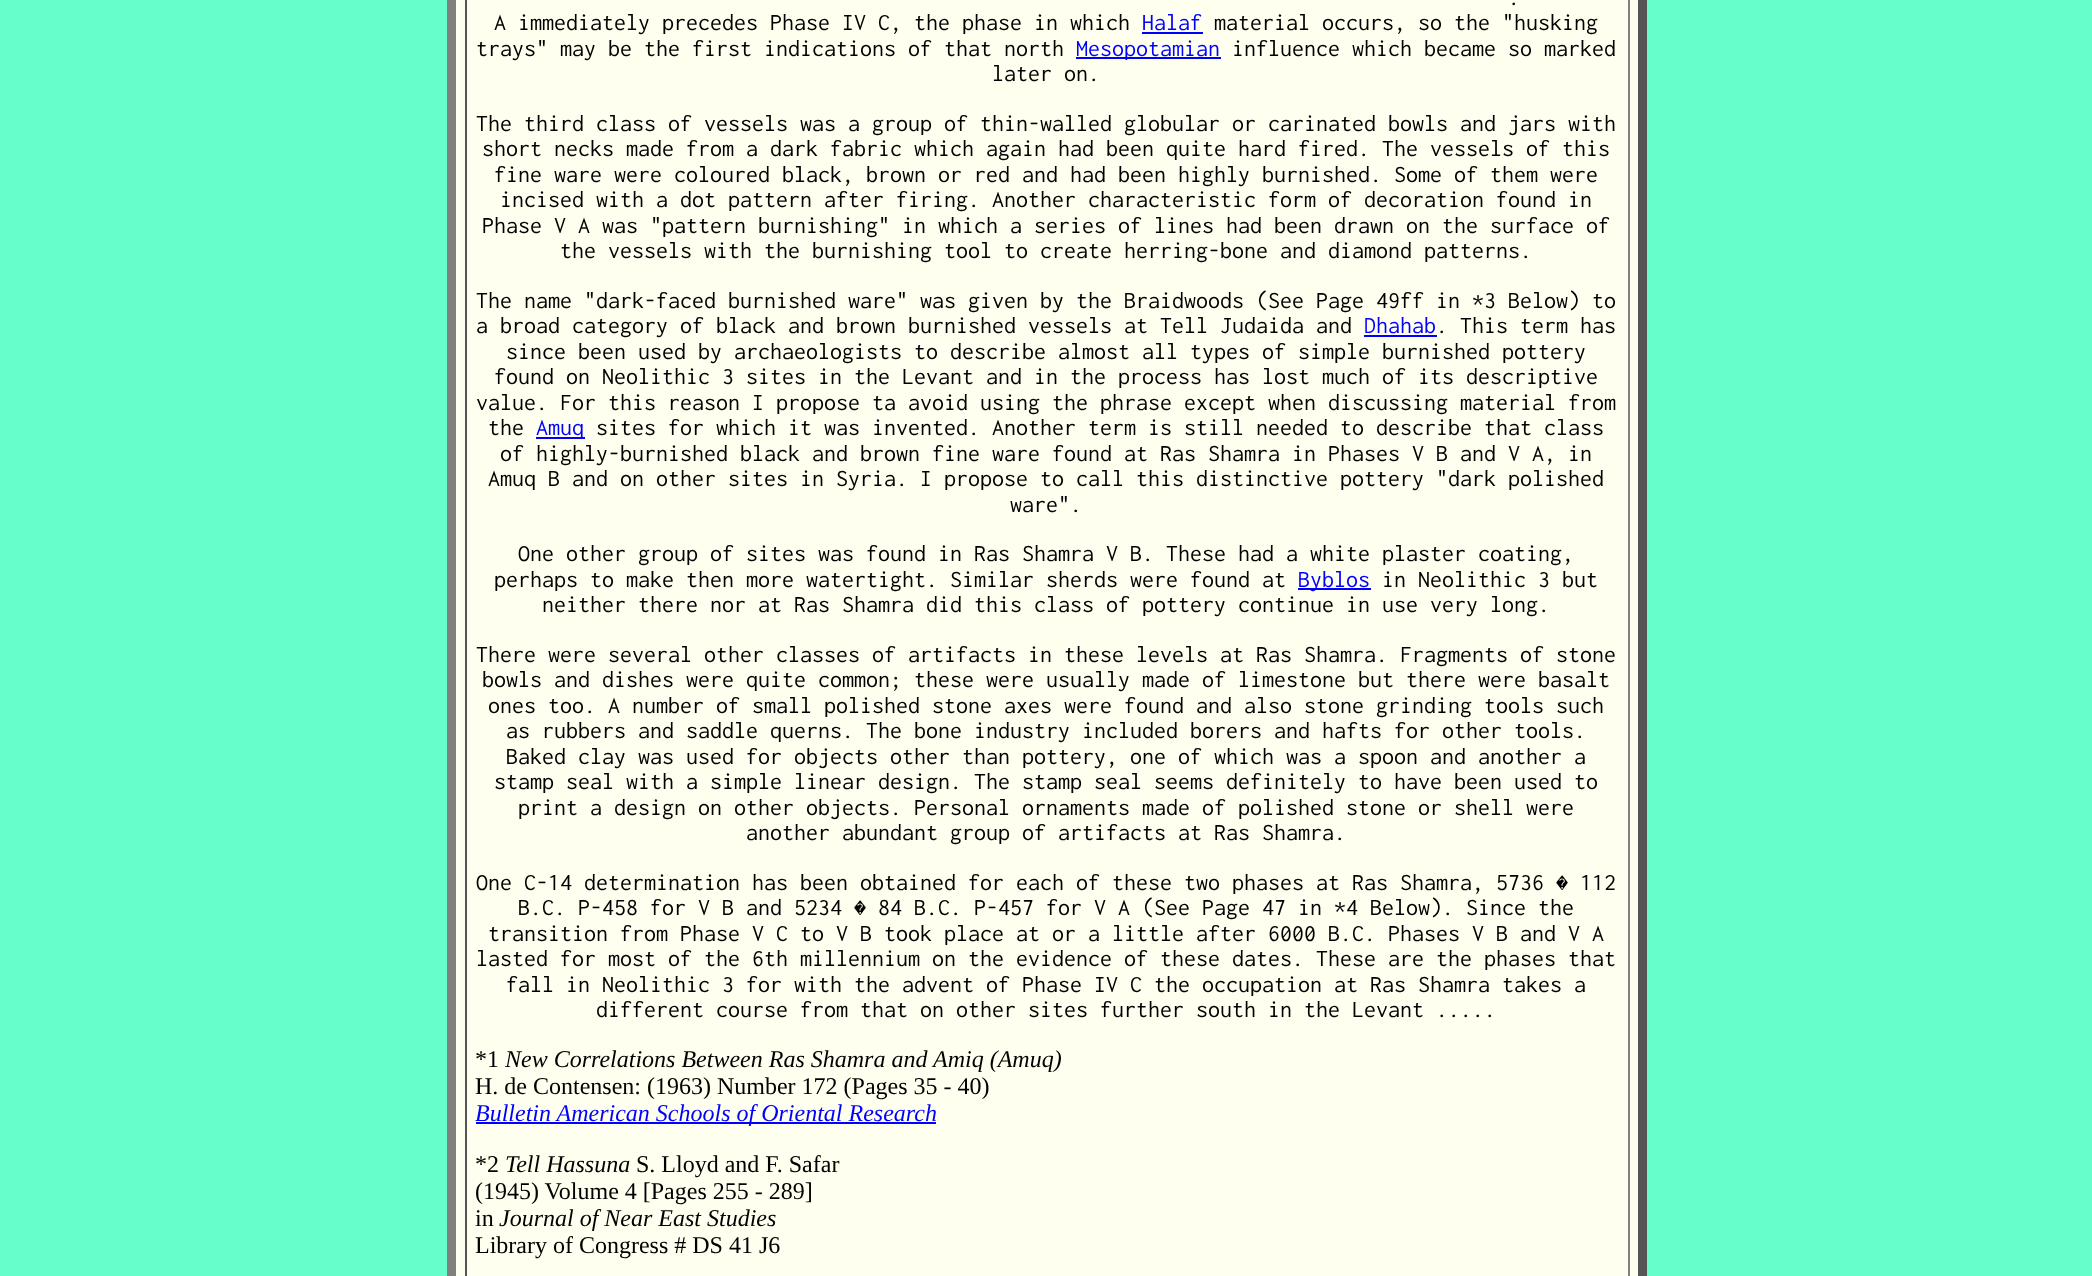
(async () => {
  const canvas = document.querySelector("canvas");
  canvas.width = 2092;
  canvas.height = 1276;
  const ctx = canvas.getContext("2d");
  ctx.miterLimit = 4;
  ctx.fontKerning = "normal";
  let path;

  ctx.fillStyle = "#66ffcc";
  ctx.fillRect(0, 0, 2092, 1276);
  ctx.fillStyle = "#ffffef";
  ctx.fillRect(456, 0, 1182, 1276);
  ctx.fillStyle = "#555555";
  path = new Path2D("M1647-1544V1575L1638 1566V-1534Z");
  ctx.fill(path);
  ctx.fillStyle = "#808080";
  path = new Path2D("M447 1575V-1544L456-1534V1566Z");
  ctx.fill(path);
  for (const [x, y, w, h, color] of [
    [1628, 0, 2, 1276, "#808080"],
    [465, 0, 2, 1276, "#555555"],
    [1142, 32, 61, 2, "#0000ff"],
    [1076, 57, 145, 2, "#0000ff"],
    [1364, 335, 73, 2, "#0000ff"],
    [536, 437, 49, 2, "#0000ff"],
    [1298, 588, 73, 2, "#0000ff"],
    [476, 1122, 460, 2, "#0000ff"],
  ]) {
    ctx.fillStyle = color;
    ctx.fillRect(x, y, w, h);
  }
  ctx.font = "24px Inconsolata";
  ctx.fillStyle = "#000000";
  ctx.fillText(".", 1508, 5);
  ctx.fillText("A immediately precedes Phase IV C, the phase in which", 494, 30);
  ctx.fillStyle = "#0000ff";
  ctx.fillText("Halaf", 1142, 30);
  ctx.fillStyle = "#000000";
  ctx.fillText("material occurs, so the \"husking", 1214, 30);
  ctx.fillText("trays\" may be the first indications of that north", 476, 56);
  ctx.fillStyle = "#0000ff";
  ctx.fillText("Mesopotamian", 1076, 56);
  ctx.fillStyle = "#000000";
  for (const [text, x, y] of [
    ["influence which became so marked", 1232, 56],
    ["later on.", 992, 81],
    ["The third class of vessels was a group of thin-walled globular or carinated bowls and jars with", 476, 131],
    ["short necks made from a dark fabric which again had been quite hard fired. The vessels of this", 482, 156],
    ["fine ware were coloured black, brown or red and had been highly burnished. Some of them were", 494, 182],
    ["incised with a dot pattern after firing. Another characteristic form of decoration found in", 500, 207],
    ["Phase V A was \"pattern burnishing\" in which a series of lines had been drawn on the surface of", 482, 233],
    ["the vessels with the burnishing tool to create herring-bone and diamond patterns.", 560, 258],
    ["The name \"dark-faced burnished ware\" was given by the Braidwoods (See Page 49ff in *3 Below) to", 476, 308],
    ["a broad category of black and brown burnished vessels at Tell Judaida and", 476, 333],
  ]) {
    ctx.fillText(text, x, y);
  }
  ctx.fillStyle = "#0000ff";
  ctx.fillText("Dhahab", 1364, 333);
  ctx.fillStyle = "#000000";
  for (const [text, x, y] of [
    [". This term has", 1436, 333],
    ["since been used by archaeologists to describe almost all types of simple burnished pottery", 506, 359],
    ["found on Neolithic 3 sites in the Levant and in the process has lost much of its descriptive", 494, 384],
    ["value. For this reason I propose ta avoid using the phrase except when discussing material from", 476, 410],
    ["the", 488, 435],
  ]) {
    ctx.fillText(text, x, y);
  }
  ctx.fillStyle = "#0000ff";
  ctx.fillText("Amuq", 536, 435);
  ctx.fillStyle = "#000000";
  for (const [text, x, y] of [
    ["sites for which it was invented. Another term is still needed to describe that class", 596, 435],
    ["of highly-burnished black and brown fine ware found at Ras Shamra in Phases V B and V A, in", 500, 461],
    ["Amuq B and on other sites in Syria. I propose to call this distinctive pottery \"dark polished", 488, 486],
    ["ware\".", 1010, 512],
    ["One other group of sites was found in Ras Shamra V B. These had a white plaster coating,", 518, 561],
    ["perhaps to make then more watertight. Similar sherds were found at", 494, 587],
  ]) {
    ctx.fillText(text, x, y);
  }
  ctx.fillStyle = "#0000ff";
  ctx.fillText("Byblos", 1298, 587);
  ctx.fillStyle = "#000000";
  for (const [text, x, y] of [
    ["in Neolithic 3 but", 1382, 587],
    ["neither there nor at Ras Shamra did this class of pottery continue in use very long.", 542, 612],
    ["There were several other classes of artifacts in these levels at Ras Shamra. Fragments of stone", 476, 662],
    ["bowls and dishes were quite common; these were usually made of limestone but there were basalt", 482, 687],
    ["ones too. A number of small polished stone axes were found and also stone grinding tools such", 488, 713],
    ["as rubbers and saddle querns. The bone industry included borers and hafts for other tools.", 506, 738],
    ["Baked clay was used for objects other than pottery, one of which was a spoon and another a", 506, 764],
    ["stamp seal with a simple linear design. The stamp seal seems definitely to have been used to", 494, 789],
    ["print a design on other objects. Personal ornaments made of polished stone or shell were", 518, 815],
    ["another abundant group of artifacts at Ras Shamra.", 746, 840],
    ["One C-14 determination has been obtained for each of these two phases at Ras Shamra, 5736 � 112", 476, 890],
    ["B.C. P-458 for V B and 5234 � 84 B.C. P-457 for V A (See Page 47 in *4 Below). Since the", 518, 915],
    ["transition from Phase V C to V B took place at or a little after 6000 B.C. Phases V B and V A", 488, 941],
    ["lasted for most of the 6th millennium on the evidence of these dates. These are the phases that", 476, 966],
    ["fall in Neolithic 3 for with the advent of Phase IV C the occupation at Ras Shamra takes a", 506, 992],
    ["different course from that on other sites further south in the Levant .....", 596, 1017],
  ]) {
    ctx.fillText(text, x, y);
  }
  ctx.font = "24px Liberation Serif";
  ctx.fillText("*1", 475, 1067);
  ctx.font = "italic 24px Liberation Serif";
  ctx.fillText("New Correlations Between Ras Shamra and Amiq (Amuq)", 505, 1067);
  ctx.font = "24px Liberation Serif";
  ctx.fillText("H. de Contensen: (1963) Number 172 (Pages 35 - 40)", 475, 1094);
  ctx.font = "italic 24px Liberation Serif";
  ctx.fillStyle = "#0000ff";
  ctx.fillText("Bulletin American Schools of Oriental Research", 475, 1121);
  ctx.font = "24px Liberation Serif";
  ctx.fillStyle = "#000000";
  ctx.fillText("*2", 475, 1172);
  ctx.font = "italic 24px Liberation Serif";
  ctx.fillText("Tell Hassuna", 505, 1172);
  ctx.font = "24px Liberation Serif";
  for (const [text, x, y] of [
    ["S. Lloyd and F. Safar", 636, 1172],
    ["(1945) Volume 4 [Pages 255 - 289]", 475, 1199],
    ["in", 475, 1226],
  ]) {
    ctx.fillText(text, x, y);
  }
  ctx.font = "italic 24px Liberation Serif";
  ctx.fillText("Journal of Near East Studies", 499, 1226);
  ctx.font = "24px Liberation Serif";
  ctx.fillText("Library of Congress # DS 41 J6", 475, 1253);
})();
